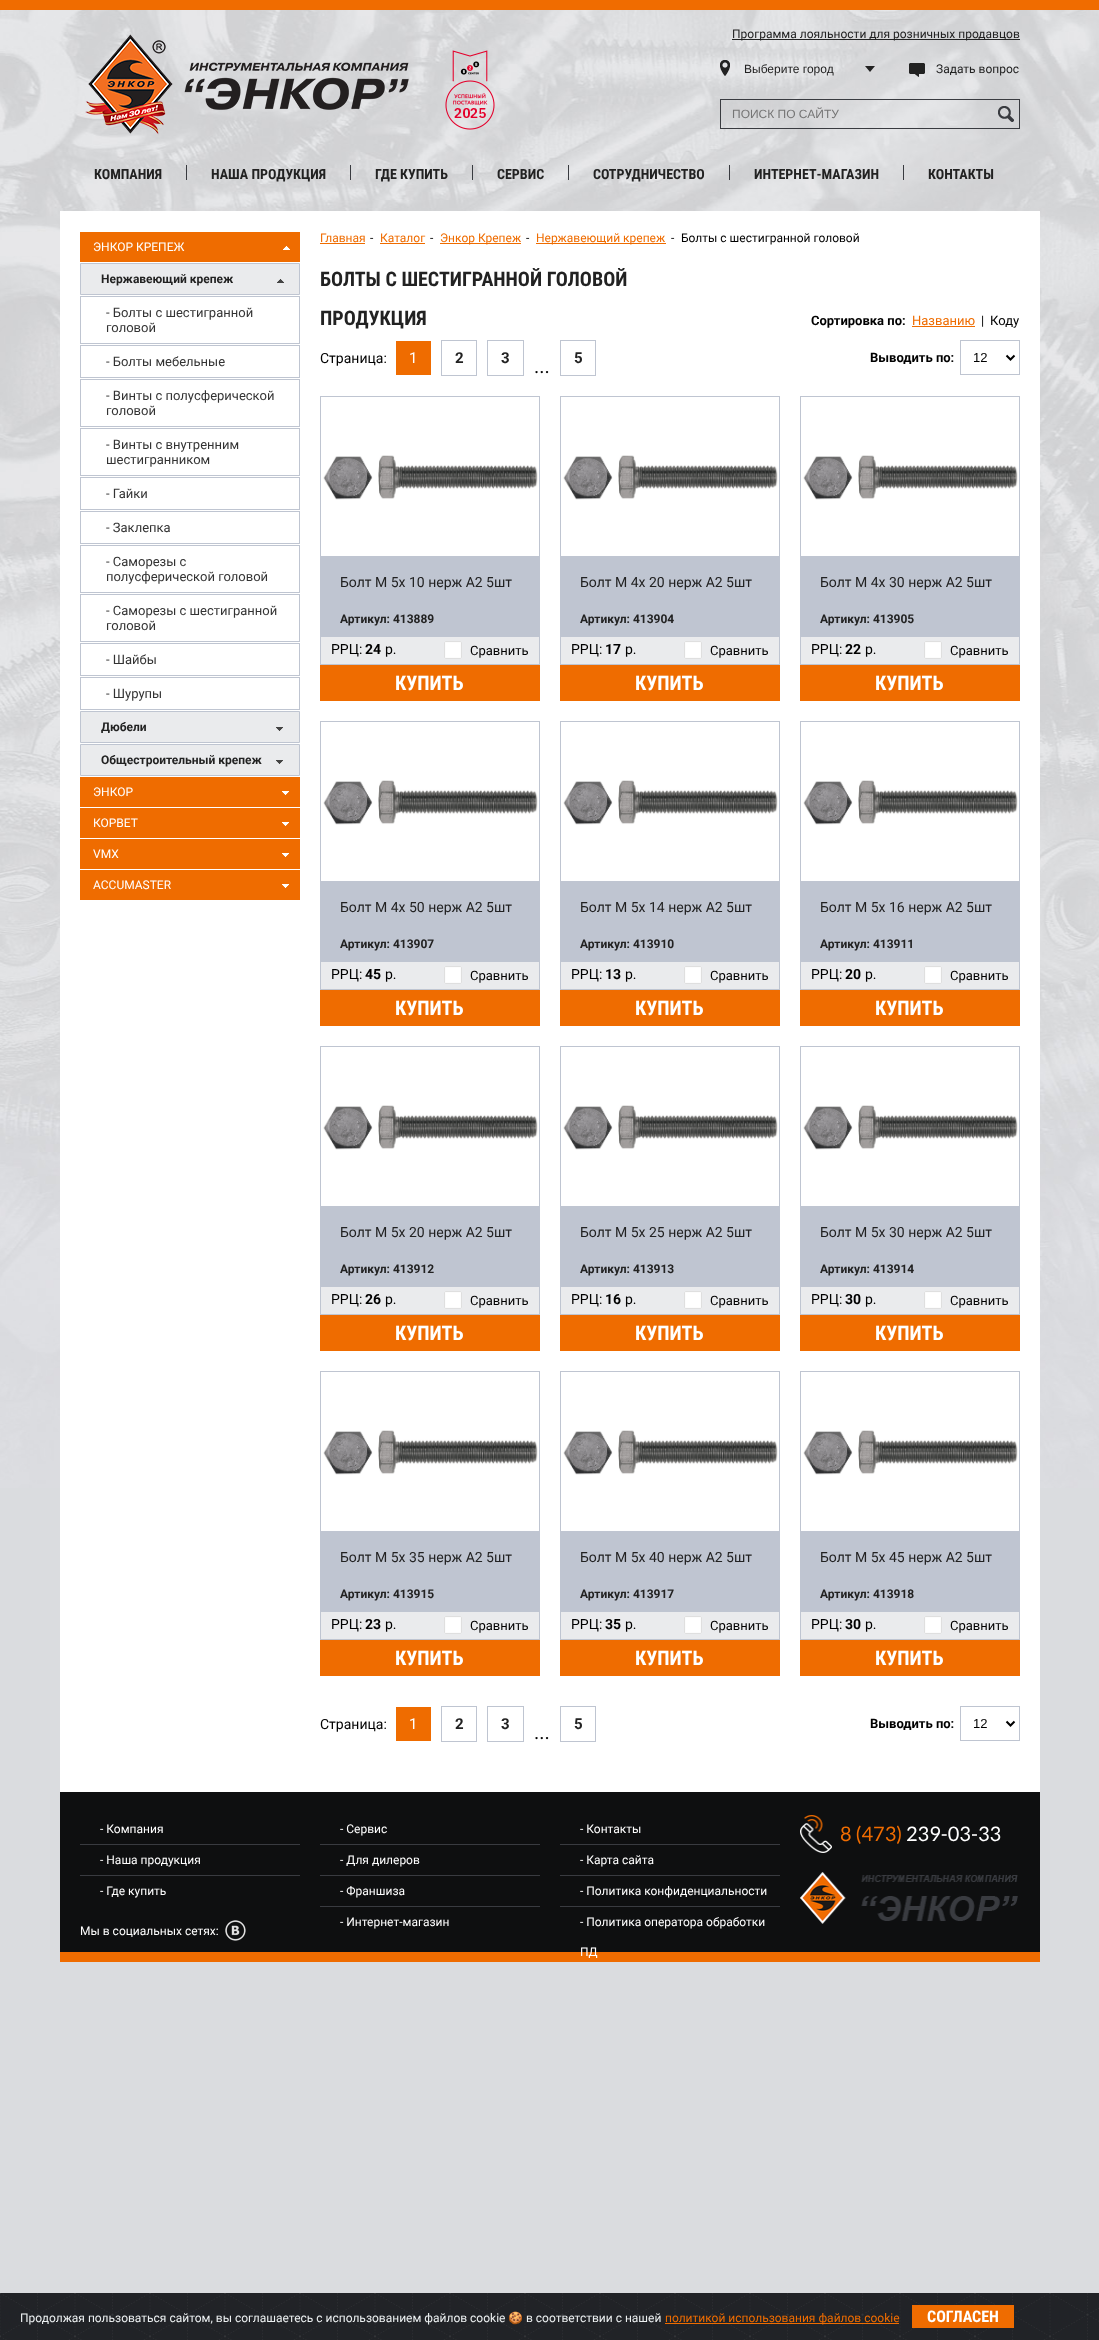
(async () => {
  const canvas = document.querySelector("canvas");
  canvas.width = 1099;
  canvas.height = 2340;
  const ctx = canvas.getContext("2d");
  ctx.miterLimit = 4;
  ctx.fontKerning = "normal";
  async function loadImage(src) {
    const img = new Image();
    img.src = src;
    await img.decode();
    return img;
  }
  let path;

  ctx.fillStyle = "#dadcdf";
  ctx.fillRect(0, 0, 1099, 2340);
  ctx.drawImage(await loadImage("img/1.png"), 0, 10, 1099, 1478);
  ctx.fillStyle = "#f06c00";
  ctx.fillRect(0, 0, 1099, 10);
  ctx.drawImage(await loadImage("img/2.png"), 85, 34, 324, 101);
  ctx.drawImage(await loadImage("img/3.png"), 445, 50, 50, 80);
  ctx.fillStyle = "#222222";
  ctx.fillRect(732, 39, 288, 1);
  ctx.drawImage(await loadImage("img/4.png"), 720, 60, 10, 16);
  ctx.drawImage(await loadImage("img/5.png"), 865, 66, 10, 6);
  ctx.drawImage(await loadImage("img/6.png"), 909, 63, 16, 14);
  ctx.strokeStyle = "#393b40";
  ctx.strokeRect(720.5, 99.5, 299, 29);
  ctx.drawImage(await loadImage("img/7.png"), 998, 106, 16, 16);
  for (const [x, y, w, h, color] of [
    [186, 165, 1, 15, "#393b40"],
    [350, 165, 1, 15, "#393b40"],
    [472, 165, 1, 15, "#393b40"],
    [568, 165, 1, 15, "#393b40"],
    [729, 165, 1, 15, "#393b40"],
    [903, 165, 1, 15, "#393b40"],
    [60, 211, 980, 1581, "#ffffff"],
    [80, 232, 220, 30, "#ef6c00"],
  ]) {
    ctx.fillStyle = color;
    ctx.fillRect(x, y, w, h);
  }
  ctx.drawImage(await loadImage("img/8.png"), 283, 246, 7, 4);
  ctx.fillStyle = "#eaebed";
  ctx.beginPath();
  ctx.rect(80.5, 263.5, 219, 31);
  ctx.fill();
  ctx.strokeStyle = "#bfc5d1";
  ctx.stroke();
  ctx.drawImage(await loadImage("img/9.png"), 277, 279, 7, 4);
  ctx.strokeRect(80.5, 296.5, 219, 47);
  ctx.strokeRect(80.5, 345.5, 219, 32);
  ctx.strokeRect(80.5, 379.5, 219, 47);
  ctx.strokeRect(80.5, 428.5, 219, 47);
  ctx.strokeRect(80.5, 477.5, 219, 32);
  ctx.strokeRect(80.5, 511.5, 219, 32);
  ctx.strokeRect(80.5, 545.5, 219, 47);
  ctx.strokeRect(80.5, 594.5, 219, 47);
  ctx.strokeRect(80.5, 643.5, 219, 32);
  ctx.strokeRect(80.5, 677.5, 219, 32);
  ctx.beginPath();
  ctx.rect(80.5, 711.5, 219, 31);
  ctx.fill();
  ctx.stroke();
  ctx.drawImage(await loadImage("img/10.png"), 276, 727, 7, 4);
  ctx.beginPath();
  ctx.rect(80.5, 744.5, 219, 31);
  ctx.fill();
  ctx.stroke();
  ctx.drawImage(await loadImage("img/10.png"), 276, 760, 7, 4);
  ctx.fillStyle = "#ef6c00";
  ctx.fillRect(80, 777, 220, 30);
  ctx.drawImage(await loadImage("img/11.png"), 282, 791, 7, 4);
  ctx.fillRect(80, 808, 220, 30);
  ctx.drawImage(await loadImage("img/11.png"), 282, 822, 7, 4);
  ctx.fillRect(80, 839, 220, 30);
  ctx.drawImage(await loadImage("img/11.png"), 282, 853, 7, 4);
  ctx.fillRect(80, 870, 220, 30);
  ctx.drawImage(await loadImage("img/11.png"), 282, 884, 7, 4);
  for (const [x, y, w, h, color] of [
    [320, 243, 45, 1, "#ef6c00"],
    [380, 243, 45, 1, "#ef6c00"],
    [440, 243, 81, 1, "#ef6c00"],
    [536, 243, 130, 1, "#ef6c00"],
    [912, 326, 63, 1, "#ef6c00"],
    [396, 341, 35, 34, "#ef6c00"],
  ]) {
    ctx.fillStyle = color;
    ctx.fillRect(x, y, w, h);
  }
  ctx.strokeRect(441.5, 340.5, 35, 35);
  ctx.strokeRect(487.5, 340.5, 36, 35);
  ctx.strokeRect(560.5, 340.5, 35, 35);
  ctx.strokeRect(960.5, 340.5, 59, 34);
  path = new Path2D("M1006.5 355.5L1010.5 359.5L1014.5 355.5");
  ctx.strokeStyle = "#000000";
  ctx.lineWidth = 2;
  ctx.stroke(path);
  ctx.drawImage(await loadImage("img/12.png"), 323, 455, 215, 45);
  ctx.strokeStyle = "#bfc5d1";
  ctx.lineWidth = 1;
  ctx.strokeRect(320.5, 396.5, 219, 160);
  for (const [x, y, w, h, color] of [
    [320, 557, 220, 80, "#bfc5d1"],
    [321, 637, 218, 27, "#eaebed"],
    [539, 637, 1, 28, "#bfc5d1"],
    [320, 664, 220, 1, "#bfc5d1"],
    [320, 637, 1, 28, "#bfc5d1"],
  ]) {
    ctx.fillStyle = color;
    ctx.fillRect(x, y, w, h);
  }
  ctx.drawImage(await loadImage("img/13.png"), 444, 641, 18, 18);
  ctx.fillStyle = "#ef6c00";
  ctx.fillRect(320, 665, 220, 36);
  ctx.drawImage(await loadImage("img/12.png"), 563, 455, 215, 45);
  ctx.strokeRect(560.5, 396.5, 219, 160);
  for (const [x, y, w, h, color] of [
    [560, 557, 220, 80, "#bfc5d1"],
    [561, 637, 218, 27, "#eaebed"],
    [779, 637, 1, 28, "#bfc5d1"],
    [560, 664, 220, 1, "#bfc5d1"],
    [560, 637, 1, 28, "#bfc5d1"],
  ]) {
    ctx.fillStyle = color;
    ctx.fillRect(x, y, w, h);
  }
  ctx.drawImage(await loadImage("img/13.png"), 684, 641, 18, 18);
  ctx.fillStyle = "#ef6c00";
  ctx.fillRect(560, 665, 220, 36);
  ctx.drawImage(await loadImage("img/12.png"), 803, 455, 215, 45);
  ctx.strokeRect(800.5, 396.5, 219, 160);
  for (const [x, y, w, h, color] of [
    [800, 557, 220, 80, "#bfc5d1"],
    [801, 637, 218, 27, "#eaebed"],
    [1019, 637, 1, 28, "#bfc5d1"],
    [800, 664, 220, 1, "#bfc5d1"],
    [800, 637, 1, 28, "#bfc5d1"],
  ]) {
    ctx.fillStyle = color;
    ctx.fillRect(x, y, w, h);
  }
  ctx.drawImage(await loadImage("img/13.png"), 924, 641, 18, 18);
  ctx.fillStyle = "#ef6c00";
  ctx.fillRect(800, 665, 220, 36);
  ctx.drawImage(await loadImage("img/12.png"), 323, 780, 215, 45);
  ctx.strokeRect(320.5, 721.5, 219, 160);
  for (const [x, y, w, h, color] of [
    [320, 882, 220, 80, "#bfc5d1"],
    [321, 962, 218, 27, "#eaebed"],
    [539, 962, 1, 28, "#bfc5d1"],
    [320, 989, 220, 1, "#bfc5d1"],
    [320, 962, 1, 28, "#bfc5d1"],
  ]) {
    ctx.fillStyle = color;
    ctx.fillRect(x, y, w, h);
  }
  ctx.drawImage(await loadImage("img/13.png"), 444, 966, 18, 18);
  ctx.fillStyle = "#ef6c00";
  ctx.fillRect(320, 990, 220, 36);
  ctx.drawImage(await loadImage("img/12.png"), 563, 780, 215, 45);
  ctx.strokeRect(560.5, 721.5, 219, 160);
  for (const [x, y, w, h, color] of [
    [560, 882, 220, 80, "#bfc5d1"],
    [561, 962, 218, 27, "#eaebed"],
    [779, 962, 1, 28, "#bfc5d1"],
    [560, 989, 220, 1, "#bfc5d1"],
    [560, 962, 1, 28, "#bfc5d1"],
  ]) {
    ctx.fillStyle = color;
    ctx.fillRect(x, y, w, h);
  }
  ctx.drawImage(await loadImage("img/13.png"), 684, 966, 18, 18);
  ctx.fillStyle = "#ef6c00";
  ctx.fillRect(560, 990, 220, 36);
  ctx.drawImage(await loadImage("img/12.png"), 803, 780, 215, 45);
  ctx.strokeRect(800.5, 721.5, 219, 160);
  for (const [x, y, w, h, color] of [
    [800, 882, 220, 80, "#bfc5d1"],
    [801, 962, 218, 27, "#eaebed"],
    [1019, 962, 1, 28, "#bfc5d1"],
    [800, 989, 220, 1, "#bfc5d1"],
    [800, 962, 1, 28, "#bfc5d1"],
  ]) {
    ctx.fillStyle = color;
    ctx.fillRect(x, y, w, h);
  }
  ctx.drawImage(await loadImage("img/13.png"), 924, 966, 18, 18);
  ctx.fillStyle = "#ef6c00";
  ctx.fillRect(800, 990, 220, 36);
  ctx.drawImage(await loadImage("img/12.png"), 323, 1105, 215, 45);
  ctx.strokeRect(320.5, 1046.5, 219, 160);
  for (const [x, y, w, h, color] of [
    [320, 1207, 220, 80, "#bfc5d1"],
    [321, 1287, 218, 27, "#eaebed"],
    [539, 1287, 1, 28, "#bfc5d1"],
    [320, 1314, 220, 1, "#bfc5d1"],
    [320, 1287, 1, 28, "#bfc5d1"],
  ]) {
    ctx.fillStyle = color;
    ctx.fillRect(x, y, w, h);
  }
  ctx.drawImage(await loadImage("img/13.png"), 444, 1291, 18, 18);
  ctx.fillStyle = "#ef6c00";
  ctx.fillRect(320, 1315, 220, 36);
  ctx.drawImage(await loadImage("img/12.png"), 563, 1105, 215, 45);
  ctx.strokeRect(560.5, 1046.5, 219, 160);
  for (const [x, y, w, h, color] of [
    [560, 1207, 220, 80, "#bfc5d1"],
    [561, 1287, 218, 27, "#eaebed"],
    [779, 1287, 1, 28, "#bfc5d1"],
    [560, 1314, 220, 1, "#bfc5d1"],
    [560, 1287, 1, 28, "#bfc5d1"],
  ]) {
    ctx.fillStyle = color;
    ctx.fillRect(x, y, w, h);
  }
  ctx.drawImage(await loadImage("img/13.png"), 684, 1291, 18, 18);
  ctx.fillStyle = "#ef6c00";
  ctx.fillRect(560, 1315, 220, 36);
  ctx.drawImage(await loadImage("img/12.png"), 803, 1105, 215, 45);
  ctx.strokeRect(800.5, 1046.5, 219, 160);
  for (const [x, y, w, h, color] of [
    [800, 1207, 220, 80, "#bfc5d1"],
    [801, 1287, 218, 27, "#eaebed"],
    [1019, 1287, 1, 28, "#bfc5d1"],
    [800, 1314, 220, 1, "#bfc5d1"],
    [800, 1287, 1, 28, "#bfc5d1"],
  ]) {
    ctx.fillStyle = color;
    ctx.fillRect(x, y, w, h);
  }
  ctx.drawImage(await loadImage("img/13.png"), 924, 1291, 18, 18);
  ctx.fillStyle = "#ef6c00";
  ctx.fillRect(800, 1315, 220, 36);
  ctx.drawImage(await loadImage("img/12.png"), 323, 1430, 215, 45);
  ctx.strokeRect(320.5, 1371.5, 219, 160);
  for (const [x, y, w, h, color] of [
    [320, 1532, 220, 80, "#bfc5d1"],
    [321, 1612, 218, 27, "#eaebed"],
    [539, 1612, 1, 28, "#bfc5d1"],
    [320, 1639, 220, 1, "#bfc5d1"],
    [320, 1612, 1, 28, "#bfc5d1"],
  ]) {
    ctx.fillStyle = color;
    ctx.fillRect(x, y, w, h);
  }
  ctx.drawImage(await loadImage("img/13.png"), 444, 1616, 18, 18);
  ctx.fillStyle = "#ef6c00";
  ctx.fillRect(320, 1640, 220, 36);
  ctx.drawImage(await loadImage("img/12.png"), 563, 1430, 215, 45);
  ctx.strokeRect(560.5, 1371.5, 219, 160);
  for (const [x, y, w, h, color] of [
    [560, 1532, 220, 80, "#bfc5d1"],
    [561, 1612, 218, 27, "#eaebed"],
    [779, 1612, 1, 28, "#bfc5d1"],
    [560, 1639, 220, 1, "#bfc5d1"],
    [560, 1612, 1, 28, "#bfc5d1"],
  ]) {
    ctx.fillStyle = color;
    ctx.fillRect(x, y, w, h);
  }
  ctx.drawImage(await loadImage("img/13.png"), 684, 1616, 18, 18);
  ctx.fillStyle = "#ef6c00";
  ctx.fillRect(560, 1640, 220, 36);
  ctx.drawImage(await loadImage("img/12.png"), 803, 1430, 215, 45);
  ctx.strokeRect(800.5, 1371.5, 219, 160);
  for (const [x, y, w, h, color] of [
    [800, 1532, 220, 80, "#bfc5d1"],
    [801, 1612, 218, 27, "#eaebed"],
    [1019, 1612, 1, 28, "#bfc5d1"],
    [800, 1639, 220, 1, "#bfc5d1"],
    [800, 1612, 1, 28, "#bfc5d1"],
  ]) {
    ctx.fillStyle = color;
    ctx.fillRect(x, y, w, h);
  }
  ctx.drawImage(await loadImage("img/13.png"), 924, 1616, 18, 18);
  ctx.fillStyle = "#ef6c00";
  ctx.fillRect(800, 1640, 220, 36);
  ctx.fillRect(396, 1707, 35, 34);
  ctx.strokeRect(441.5, 1706.5, 35, 35);
  ctx.strokeRect(487.5, 1706.5, 36, 35);
  ctx.strokeRect(560.5, 1706.5, 35, 35);
  ctx.strokeRect(960.5, 1706.5, 59, 34);
  path = new Path2D("M1006.5 1721.5L1010.5 1725.5L1014.5 1721.5");
  ctx.strokeStyle = "#000000";
  ctx.lineWidth = 2;
  ctx.stroke(path);
  for (const [x, y, w, h, color] of [
    [60, 1792, 980, 160, "#0e0f10"],
    [60, 1952, 980, 10, "#ef6c00"],
    [80, 1844, 220, 1, "#393b40"],
    [80, 1875, 220, 1, "#393b40"],
  ]) {
    ctx.fillStyle = color;
    ctx.fillRect(x, y, w, h);
  }
  ctx.drawImage(await loadImage("img/14.png"), 225, 1920, 21, 21);
  for (const [x, y, w, h, color] of [
    [320, 1844, 220, 1, "#393b40"],
    [320, 1875, 220, 1, "#393b40"],
    [320, 1906, 220, 1, "#393b40"],
    [560, 1844, 220, 1, "#393b40"],
    [560, 1875, 220, 1, "#393b40"],
    [560, 1906, 220, 1, "#393b40"],
  ]) {
    ctx.fillStyle = color;
    ctx.fillRect(x, y, w, h);
  }
  ctx.drawImage(await loadImage("img/15.png"), 800, 1872, 218, 52);
  ctx.drawImage(await loadImage("img/16.png"), 800, 1815, 32, 38);
  ctx.drawImage(await loadImage("img/17.png"), 0, 2293, 1099, 47);
  ctx.fillStyle = "#ef6c00";
  ctx.fillRect(665, 2323, 234, 1);
  ctx.fillRect(912, 2305, 102, 23);
  ctx.font = "12px Roboto";
  ctx.fillStyle = "#222222";
  ctx.fillText("Программа лояльности для розничных продавцов", 732, 38);
  ctx.font = "12px Liberation Sans";
  ctx.fillText("Выберите город", 744, 73);
  ctx.font = "12px Roboto";
  ctx.fillText("Задать вопрос", 936, 73);
  ctx.font = "12px Liberation Sans";
  ctx.fillStyle = "#757575";
  ctx.fillText("ПОИСК ПО САЙТУ", 732, 118);
  ctx.font = "bold 14px Roboto Condensed";
  ctx.fillStyle = "#222222";
  for (const [text, x, y] of [
    ["КОМПАНИЯ", 94, 179],
    ["НАША ПРОДУКЦИЯ", 211, 179],
    ["ГДЕ КУПИТЬ", 375, 179],
    ["СЕРВИС", 497, 179],
    ["СОТРУДНИЧЕСТВО", 593, 179],
    ["ИНТЕРНЕТ-МАГАЗИН", 754, 179],
    ["КОНТАКТЫ", 928, 179],
  ]) {
    ctx.fillText(text, x, y);
  }
  ctx.font = "12px Roboto";
  ctx.fillStyle = "#ffffff";
  ctx.fillText("ЭНКОР КРЕПЕЖ", 93, 251);
  ctx.font = "bold 12px Roboto";
  ctx.fillStyle = "#222222";
  ctx.fillText("Нержавеющий крепеж", 101, 283);
  ctx.font = "13px Roboto";
  ctx.fillStyle = "#333333";
  for (const [text, x, y] of [
    ["- Болты с шестигранной", 106, 317],
    ["головой", 106, 332],
    ["- Болты мебельные", 106, 366],
    ["- Винты с полусферической", 106, 400],
    ["головой", 106, 415],
    ["- Винты с внутренним", 106, 449],
    ["шестигранником", 106, 464],
    ["- Гайки", 106, 498],
    ["- Заклепка", 106, 532],
    ["- Саморезы с", 106, 566],
    ["полусферической головой", 106, 581],
    ["- Саморезы с шестигранной", 106, 615],
    ["головой", 106, 630],
    ["- Шайбы", 106, 664],
    ["- Шурупы", 106, 698],
  ]) {
    ctx.fillText(text, x, y);
  }
  ctx.font = "bold 12px Roboto";
  ctx.fillStyle = "#222222";
  ctx.fillText("Дюбели", 101, 731);
  ctx.fillText("Общестроительный крепеж", 101, 764);
  ctx.font = "12px Roboto";
  ctx.fillStyle = "#ffffff";
  for (const [text, x, y] of [
    ["ЭНКОР", 93, 796],
    ["КОРВЕТ", 93, 827],
    ["VMX", 93, 858],
    ["ACCUMASTER", 93, 889],
  ]) {
    ctx.fillText(text, x, y);
  }
  ctx.fillStyle = "#ef6c00";
  ctx.fillText("Главная", 320, 242);
  ctx.fillStyle = "#000000";
  ctx.fillText("-", 370, 242);
  ctx.fillStyle = "#ef6c00";
  ctx.fillText("Каталог", 380, 242);
  ctx.fillStyle = "#000000";
  ctx.fillText("-", 430, 242);
  ctx.fillStyle = "#ef6c00";
  ctx.fillText("Энкор Крепеж", 440, 242);
  ctx.fillStyle = "#000000";
  ctx.fillText("-", 526, 242);
  ctx.fillStyle = "#ef6c00";
  ctx.fillText("Нержавеющий крепеж", 536, 242);
  ctx.fillStyle = "#000000";
  ctx.fillText("-", 671, 242);
  ctx.fillText("Болты с шестигранной головой", 681, 242);
  ctx.font = "bold 20px Roboto Condensed";
  ctx.fillStyle = "#222222";
  ctx.fillText("БОЛТЫ С ШЕСТИГРАННОЙ ГОЛОВОЙ", 320, 286);
  ctx.fillText("ПРОДУКЦИЯ", 320, 325);
  ctx.font = "bold 13px Roboto";
  ctx.fillStyle = "#000000";
  ctx.fillText("Сортировка по:", 811, 325);
  ctx.font = "13px Roboto";
  ctx.fillStyle = "#ef6c00";
  ctx.fillText("Названию", 912, 325);
  ctx.fillStyle = "#000000";
  ctx.fillText("|", 981, 325);
  ctx.fillText("Коду", 990, 325);
  ctx.font = "14px Roboto";
  ctx.fillText("Страница:", 320, 363);
  ctx.font = "15px Roboto";
  ctx.fillStyle = "#ffffff";
  ctx.fillText("1", 409, 363);
  ctx.font = "bold 15px Roboto";
  ctx.fillStyle = "#222222";
  for (const [text, x, y] of [
    ["2", 455, 363],
    ["3", 501, 363],
    ["5", 574, 363],
  ]) {
    ctx.fillText(text, x, y);
  }
  ctx.font = "20px Roboto";
  ctx.fillStyle = "#000000";
  ctx.fillText("...", 534, 373);
  ctx.font = "bold 13px Roboto";
  ctx.fillText("Выводить по:", 870, 362);
  ctx.font = "13px Liberation Sans";
  ctx.fillText("12", 973, 362);
  ctx.font = "14px Roboto";
  ctx.fillStyle = "#222222";
  ctx.fillText("Болт М 5х 10 нерж A2 5шт", 340, 587);
  ctx.font = "bold 12px Roboto";
  ctx.fillText("Артикул: 413889", 340, 623);
  ctx.font = "14px Roboto";
  ctx.fillStyle = "#000000";
  ctx.fillText("РРЦ:", 331, 654);
  ctx.font = "bold 14px Roboto";
  ctx.fillText("24", 365, 654);
  ctx.font = "14px Roboto";
  ctx.fillText("р.", 385, 654);
  ctx.font = "13px Roboto";
  ctx.fillText("Сравнить", 470, 655);
  ctx.font = "bold 20px Roboto Condensed";
  ctx.fillStyle = "#ffffff";
  ctx.fillText("КУПИТЬ", 395, 690);
  ctx.font = "14px Roboto";
  ctx.fillStyle = "#222222";
  ctx.fillText("Болт М 4х 20 нерж A2 5шт", 580, 587);
  ctx.font = "bold 12px Roboto";
  ctx.fillText("Артикул: 413904", 580, 623);
  ctx.font = "14px Roboto";
  ctx.fillStyle = "#000000";
  ctx.fillText("РРЦ:", 571, 654);
  ctx.font = "bold 14px Roboto";
  ctx.fillText("17", 605, 654);
  ctx.font = "14px Roboto";
  ctx.fillText("р.", 625, 654);
  ctx.font = "13px Roboto";
  ctx.fillText("Сравнить", 710, 655);
  ctx.font = "bold 20px Roboto Condensed";
  ctx.fillStyle = "#ffffff";
  ctx.fillText("КУПИТЬ", 635, 690);
  ctx.font = "14px Roboto";
  ctx.fillStyle = "#222222";
  ctx.fillText("Болт М 4х 30 нерж A2 5шт", 820, 587);
  ctx.font = "bold 12px Roboto";
  ctx.fillText("Артикул: 413905", 820, 623);
  ctx.font = "14px Roboto";
  ctx.fillStyle = "#000000";
  ctx.fillText("РРЦ:", 811, 654);
  ctx.font = "bold 14px Roboto";
  ctx.fillText("22", 845, 654);
  ctx.font = "14px Roboto";
  ctx.fillText("р.", 865, 654);
  ctx.font = "13px Roboto";
  ctx.fillText("Сравнить", 950, 655);
  ctx.font = "bold 20px Roboto Condensed";
  ctx.fillStyle = "#ffffff";
  ctx.fillText("КУПИТЬ", 875, 690);
  ctx.font = "14px Roboto";
  ctx.fillStyle = "#222222";
  ctx.fillText("Болт М 4х 50 нерж A2 5шт", 340, 912);
  ctx.font = "bold 12px Roboto";
  ctx.fillText("Артикул: 413907", 340, 948);
  ctx.font = "14px Roboto";
  ctx.fillStyle = "#000000";
  ctx.fillText("РРЦ:", 331, 979);
  ctx.font = "bold 14px Roboto";
  ctx.fillText("45", 365, 979);
  ctx.font = "14px Roboto";
  ctx.fillText("р.", 385, 979);
  ctx.font = "13px Roboto";
  ctx.fillText("Сравнить", 470, 980);
  ctx.font = "bold 20px Roboto Condensed";
  ctx.fillStyle = "#ffffff";
  ctx.fillText("КУПИТЬ", 395, 1015);
  ctx.font = "14px Roboto";
  ctx.fillStyle = "#222222";
  ctx.fillText("Болт М 5х 14 нерж A2 5шт", 580, 912);
  ctx.font = "bold 12px Roboto";
  ctx.fillText("Артикул: 413910", 580, 948);
  ctx.font = "14px Roboto";
  ctx.fillStyle = "#000000";
  ctx.fillText("РРЦ:", 571, 979);
  ctx.font = "bold 14px Roboto";
  ctx.fillText("13", 605, 979);
  ctx.font = "14px Roboto";
  ctx.fillText("р.", 625, 979);
  ctx.font = "13px Roboto";
  ctx.fillText("Сравнить", 710, 980);
  ctx.font = "bold 20px Roboto Condensed";
  ctx.fillStyle = "#ffffff";
  ctx.fillText("КУПИТЬ", 635, 1015);
  ctx.font = "14px Roboto";
  ctx.fillStyle = "#222222";
  ctx.fillText("Болт М 5х 16 нерж A2 5шт", 820, 912);
  ctx.font = "bold 12px Roboto";
  ctx.fillText("Артикул: 413911", 820, 948);
  ctx.font = "14px Roboto";
  ctx.fillStyle = "#000000";
  ctx.fillText("РРЦ:", 811, 979);
  ctx.font = "bold 14px Roboto";
  ctx.fillText("20", 845, 979);
  ctx.font = "14px Roboto";
  ctx.fillText("р.", 865, 979);
  ctx.font = "13px Roboto";
  ctx.fillText("Сравнить", 950, 980);
  ctx.font = "bold 20px Roboto Condensed";
  ctx.fillStyle = "#ffffff";
  ctx.fillText("КУПИТЬ", 875, 1015);
  ctx.font = "14px Roboto";
  ctx.fillStyle = "#222222";
  ctx.fillText("Болт М 5х 20 нерж A2 5шт", 340, 1237);
  ctx.font = "bold 12px Roboto";
  ctx.fillText("Артикул: 413912", 340, 1273);
  ctx.font = "14px Roboto";
  ctx.fillStyle = "#000000";
  ctx.fillText("РРЦ:", 331, 1304);
  ctx.font = "bold 14px Roboto";
  ctx.fillText("26", 365, 1304);
  ctx.font = "14px Roboto";
  ctx.fillText("р.", 385, 1304);
  ctx.font = "13px Roboto";
  ctx.fillText("Сравнить", 470, 1305);
  ctx.font = "bold 20px Roboto Condensed";
  ctx.fillStyle = "#ffffff";
  ctx.fillText("КУПИТЬ", 395, 1340);
  ctx.font = "14px Roboto";
  ctx.fillStyle = "#222222";
  ctx.fillText("Болт М 5х 25 нерж A2 5шт", 580, 1237);
  ctx.font = "bold 12px Roboto";
  ctx.fillText("Артикул: 413913", 580, 1273);
  ctx.font = "14px Roboto";
  ctx.fillStyle = "#000000";
  ctx.fillText("РРЦ:", 571, 1304);
  ctx.font = "bold 14px Roboto";
  ctx.fillText("16", 605, 1304);
  ctx.font = "14px Roboto";
  ctx.fillText("р.", 625, 1304);
  ctx.font = "13px Roboto";
  ctx.fillText("Сравнить", 710, 1305);
  ctx.font = "bold 20px Roboto Condensed";
  ctx.fillStyle = "#ffffff";
  ctx.fillText("КУПИТЬ", 635, 1340);
  ctx.font = "14px Roboto";
  ctx.fillStyle = "#222222";
  ctx.fillText("Болт М 5х 30 нерж A2 5шт", 820, 1237);
  ctx.font = "bold 12px Roboto";
  ctx.fillText("Артикул: 413914", 820, 1273);
  ctx.font = "14px Roboto";
  ctx.fillStyle = "#000000";
  ctx.fillText("РРЦ:", 811, 1304);
  ctx.font = "bold 14px Roboto";
  ctx.fillText("30", 845, 1304);
  ctx.font = "14px Roboto";
  ctx.fillText("р.", 865, 1304);
  ctx.font = "13px Roboto";
  ctx.fillText("Сравнить", 950, 1305);
  ctx.font = "bold 20px Roboto Condensed";
  ctx.fillStyle = "#ffffff";
  ctx.fillText("КУПИТЬ", 875, 1340);
  ctx.font = "14px Roboto";
  ctx.fillStyle = "#222222";
  ctx.fillText("Болт М 5х 35 нерж A2 5шт", 340, 1562);
  ctx.font = "bold 12px Roboto";
  ctx.fillText("Артикул: 413915", 340, 1598);
  ctx.font = "14px Roboto";
  ctx.fillStyle = "#000000";
  ctx.fillText("РРЦ:", 331, 1629);
  ctx.font = "bold 14px Roboto";
  ctx.fillText("23", 365, 1629);
  ctx.font = "14px Roboto";
  ctx.fillText("р.", 385, 1629);
  ctx.font = "13px Roboto";
  ctx.fillText("Сравнить", 470, 1630);
  ctx.font = "bold 20px Roboto Condensed";
  ctx.fillStyle = "#ffffff";
  ctx.fillText("КУПИТЬ", 395, 1665);
  ctx.font = "14px Roboto";
  ctx.fillStyle = "#222222";
  ctx.fillText("Болт М 5х 40 нерж A2 5шт", 580, 1562);
  ctx.font = "bold 12px Roboto";
  ctx.fillText("Артикул: 413917", 580, 1598);
  ctx.font = "14px Roboto";
  ctx.fillStyle = "#000000";
  ctx.fillText("РРЦ:", 571, 1629);
  ctx.font = "bold 14px Roboto";
  ctx.fillText("35", 605, 1629);
  ctx.font = "14px Roboto";
  ctx.fillText("р.", 625, 1629);
  ctx.font = "13px Roboto";
  ctx.fillText("Сравнить", 710, 1630);
  ctx.font = "bold 20px Roboto Condensed";
  ctx.fillStyle = "#ffffff";
  ctx.fillText("КУПИТЬ", 635, 1665);
  ctx.font = "14px Roboto";
  ctx.fillStyle = "#222222";
  ctx.fillText("Болт М 5х 45 нерж A2 5шт", 820, 1562);
  ctx.font = "bold 12px Roboto";
  ctx.fillText("Артикул: 413918", 820, 1598);
  ctx.font = "14px Roboto";
  ctx.fillStyle = "#000000";
  ctx.fillText("РРЦ:", 811, 1629);
  ctx.font = "bold 14px Roboto";
  ctx.fillText("30", 845, 1629);
  ctx.font = "14px Roboto";
  ctx.fillText("р.", 865, 1629);
  ctx.font = "13px Roboto";
  ctx.fillText("Сравнить", 950, 1630);
  ctx.font = "bold 20px Roboto Condensed";
  ctx.fillStyle = "#ffffff";
  ctx.fillText("КУПИТЬ", 875, 1665);
  ctx.font = "14px Roboto";
  ctx.fillStyle = "#000000";
  ctx.fillText("Страница:", 320, 1729);
  ctx.font = "15px Roboto";
  ctx.fillStyle = "#ffffff";
  ctx.fillText("1", 409, 1729);
  ctx.font = "bold 15px Roboto";
  ctx.fillStyle = "#222222";
  for (const [text, x, y] of [
    ["2", 455, 1729],
    ["3", 501, 1729],
    ["5", 574, 1729],
  ]) {
    ctx.fillText(text, x, y);
  }
  ctx.font = "20px Roboto";
  ctx.fillStyle = "#000000";
  ctx.fillText("...", 534, 1739);
  ctx.font = "bold 13px Roboto";
  ctx.fillText("Выводить по:", 870, 1728);
  ctx.font = "13px Liberation Sans";
  ctx.fillText("12", 973, 1728);
  ctx.font = "12px Roboto";
  ctx.fillStyle = "#ffffff";
  for (const [text, x, y] of [
    ["- Компания", 100, 1833],
    ["- Наша продукция", 100, 1864],
    ["- Где купить", 100, 1895],
    ["Мы в cоциальных сетях:", 80, 1935],
    ["- Сервис", 340, 1833],
    ["- Для дилеров", 340, 1864],
    ["- Франшиза", 340, 1895],
    ["- Интернет-магазин", 340, 1926],
    ["- Контакты", 580, 1833],
    ["- Карта сайта", 580, 1864],
    ["- Политика конфиденциальности", 580, 1895],
    ["- Политика оператора обработки", 580, 1926],
    ["ПД", 580, 1956],
  ]) {
    ctx.fillText(text, x, y);
  }
  ctx.font = "20px Lato";
  ctx.fillStyle = "#ef6c00";
  ctx.fillText("8 (473)", 840, 1841);
  ctx.fillStyle = "#ffffff";
  ctx.fillText("239-03-33", 906, 1841);
  ctx.font = "12px Roboto";
  ctx.fillStyle = "#ecf0f1";
  ctx.fillText("Продолжая пользоваться сайтом, вы соглашаетесь с использованием файлов cookie", 20, 2322);
  ctx.font = "12px Noto Color Emoji";
  ctx.fillText("🍪", 508, 2322);
  ctx.font = "12px Roboto";
  ctx.fillText("в соответствии с нашей", 526, 2322);
  ctx.fillStyle = "#ef6c00";
  ctx.fillText("политикой использования файлов cookie", 665, 2322);
  ctx.font = "bold 16px Roboto Condensed";
  ctx.fillStyle = "#ffffff";
  ctx.fillText("СОГЛАСЕН", 927, 2322);
})();
